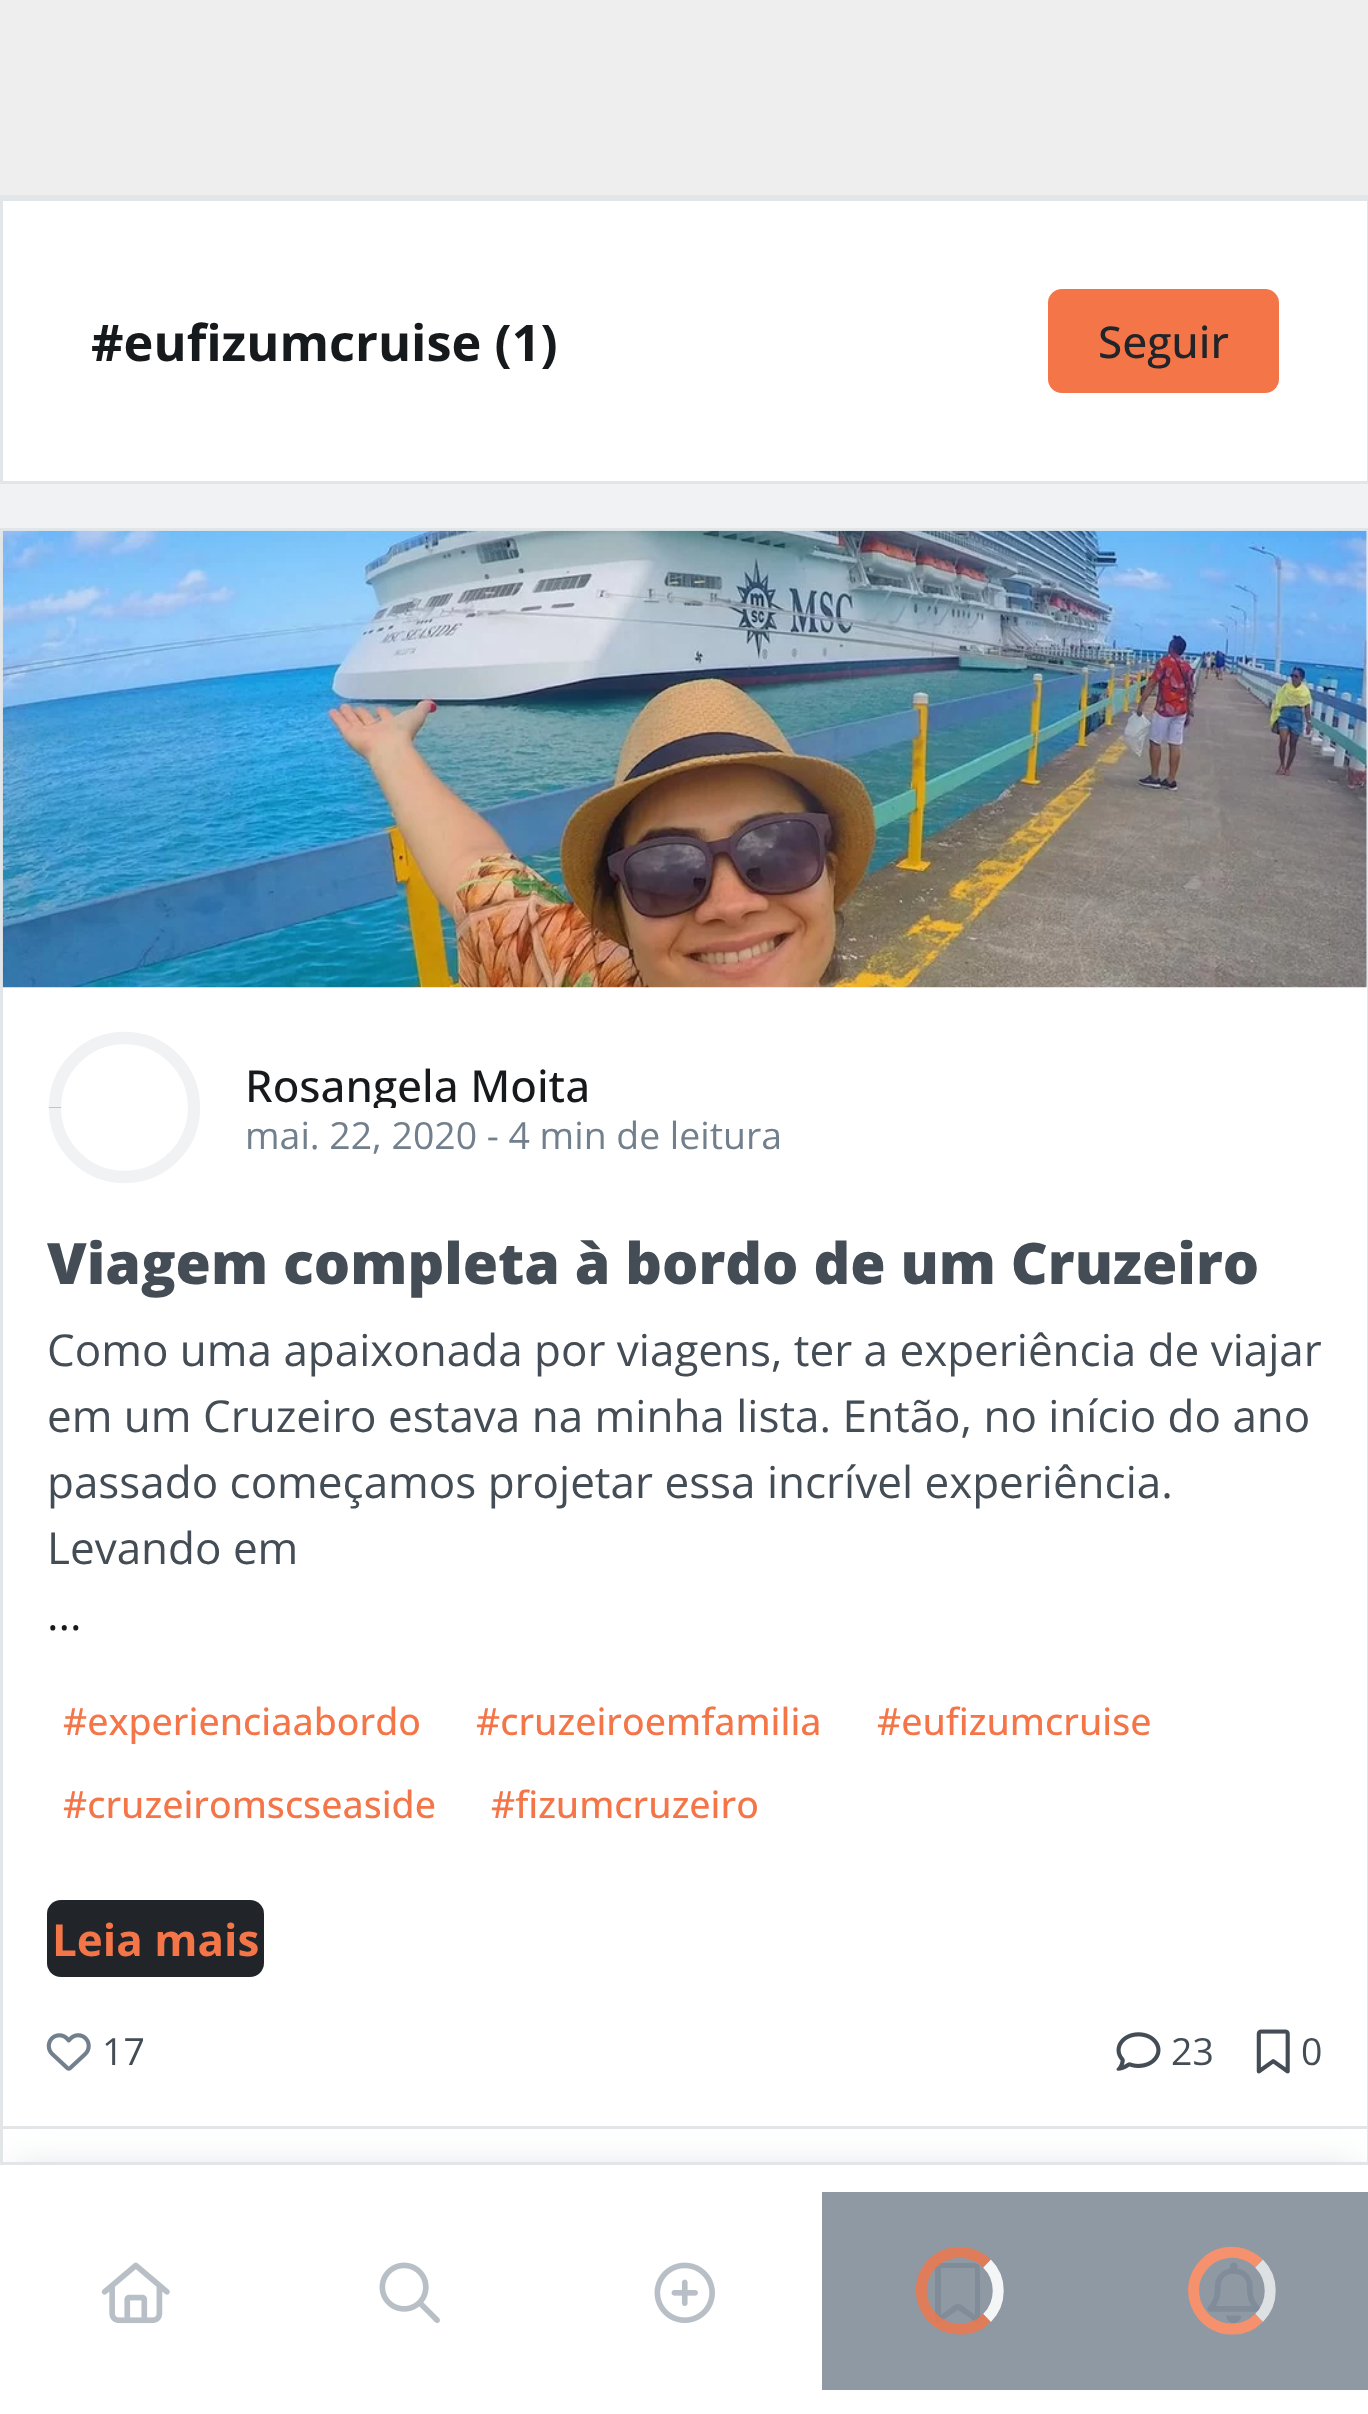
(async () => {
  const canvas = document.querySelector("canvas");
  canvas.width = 1368;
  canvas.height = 2414;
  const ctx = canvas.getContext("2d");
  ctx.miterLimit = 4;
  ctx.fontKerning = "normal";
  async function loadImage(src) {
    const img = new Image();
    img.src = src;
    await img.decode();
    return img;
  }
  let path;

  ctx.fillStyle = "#f1f2f4";
  ctx.fillRect(0, 0, 1368, 2414);
  ctx.fillStyle = "#eeeeee";
  ctx.fillRect(0, 0, 1368, 195);
  ctx.fillStyle = "#e3e6e8";
  ctx.fillRect(0, 195, 1368, 3);
  ctx.fillStyle = "#ffffff";
  ctx.beginPath();
  ctx.rect(1.5, 199.5, 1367, 283);
  ctx.fill();
  ctx.strokeStyle = "#e3e6e8";
  ctx.lineWidth = 3;
  ctx.stroke();
  ctx.fillStyle = "#f47548";
  ctx.beginPath();
  ctx.roundRect(1051, 292, 225, 98, 11);
  ctx.fill();
  ctx.strokeStyle = "#f47548";
  ctx.lineWidth = 6;
  ctx.stroke();
  ctx.fillStyle = "#ffffff";
  ctx.fillRect(3, 531, 1364, 1631);
  ctx.strokeStyle = "#e3e6e8";
  ctx.lineWidth = 3;
  ctx.strokeRect(1.5, 529.5, 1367, 1837);
  ctx.drawImage(await loadImage("img/1.png"), 2, 530, 1365, 458);
  path = new Path2D("M55 1107.5C55 1069 86 1038 124.5 1038C163 1038 194 1069 194 1107.5C194 1146 163 1177 124.5 1177C86 1177 55 1146 55 1107.5Z");
  ctx.strokeStyle = "#f1f2f4";
  ctx.lineWidth = 12.3;
  ctx.stroke(path);
  path = new Path2D("M55 1108V1107.5");
  ctx.strokeStyle = "#f47548";
  ctx.stroke(path);
  ctx.fillStyle = "#212529";
  ctx.beginPath();
  ctx.roundRect(47, 1900, 217, 77, 14);
  ctx.fill();
  ctx.drawImage(await loadImage("img/2.png"), 46, 2033, 45, 38);
  ctx.drawImage(await loadImage("img/3.png"), 1116, 2032, 45, 39);
  ctx.drawImage(await loadImage("img/4.png"), 1256, 2029, 34, 45);
  ctx.fillStyle = "#e3e6e8";
  ctx.fillRect(3, 2126, 1364, 3);
  ctx.filter = "blur(16.5px)";
  ctx.beginPath();
  ctx.rect(14, 2164, 1342, 226);
  ctx.fill();
  ctx.filter = "none";
  for (const [x, y, w, h, color] of [
    [0, 2165, 1368, 249, "#ffffff"],
    [822, 2192, 546, 198, "#8e99a4"],
    [0, 2162, 1368, 3, "#e3e6e8"],
  ]) {
    ctx.fillStyle = color;
    ctx.fillRect(x, y, w, h);
  }
  ctx.drawImage(await loadImage("img/5.png"), 101, 2262, 69, 62);
  ctx.drawImage(await loadImage("img/6.png"), 379, 2262, 61, 61);
  ctx.drawImage(await loadImage("img/7.png"), 654, 2262, 61, 61);
  path = new Path2D("M987 2263.5C1002 2278.5 1002 2303 987 2318");
  ctx.strokeStyle = "#f4f5f6";
  ctx.lineWidth = 11;
  ctx.stroke(path);
  ctx.fillStyle = "#808d98";
  path = new Path2D("M935 2268C935 2265 937 2263 941 2263V2315C962 2300 954 2300 975 2315V2268H941V2263H969C981 2263 980 2264 980 2277V2321C979 2327 971 2319 970 2318L958 2310L943 2320C934 2327 935 2320 935 2312Z");
  ctx.fill(path);
  path = new Path2D("M987 2318C980 2325 970 2329.5 960 2329C925.5 2329 908.5 2287.5 932.5 2263.5C938 2258 945 2254.5 952 2253C964.5 2250.5 978 2254.5 987 2263.5");
  ctx.strokeStyle = "rgba(244, 117, 72, 0.8)";
  ctx.stroke(path);
  ctx.drawImage(await loadImage("img/8.png"), 1207, 2262, 54, 61);
  path = new Path2D("M1259 2263.5C1274 2278.5 1274 2303 1259 2318");
  ctx.strokeStyle = "rgba(241, 242, 244, 0.8)";
  ctx.stroke(path);
  path = new Path2D("M1259 2318C1252 2325 1242 2329.5 1232 2329C1198 2329 1180.5 2287.5 1205 2263.5C1210 2258 1217 2254.5 1224.5 2253C1237 2250.5 1250 2254.5 1259 2263.5");
  ctx.strokeStyle = "#f6916d";
  ctx.stroke(path);
  ctx.font = "bold 50.5px Open Sans";
  ctx.fillStyle = "#171a1c";
  ctx.fillText("#eufizumcruise (1)", 91, 361);
  ctx.font = "500 44px Open Sans";
  ctx.fillStyle = "#212529";
  ctx.fillText("Seguir", 1098, 358);
  ctx.save();
  ctx.beginPath();
  ctx.rect(245, 1053, 536, 55);
  ctx.clip();
  ctx.fillStyle = "#171a1c";
  ctx.fillText("Rosangela Moita", 245, 1102);
  ctx.restore();
  ctx.font = "37.4px Open Sans";
  ctx.fillStyle = "#72808d";
  ctx.fillText("mai. 22, 2020 - 4 min de leitura", 245, 1149);
  ctx.font = "800 57.2px Open Sans";
  ctx.fillStyle = "#444d55";
  ctx.fillText("Viagem completa à bordo de um Cruzeiro", 47, 1284);
  ctx.font = "44px Open Sans";
  for (const [text, x, y] of [
    ["Como uma apaixonada por viagens, ter a experiência de viajar", 47, 1366],
    ["em um Cruzeiro estava na minha lista. Então, no início do ano", 47, 1432],
    ["passado começamos projetar essa incrível experiência.", 47, 1498],
    ["Levando em", 47, 1564],
  ]) {
    ctx.fillText(text, x, y);
  }
  ctx.fillStyle = "#171a1c";
  ctx.fillText("...", 47, 1630);
  ctx.font = "500 37.4px Open Sans";
  ctx.fillStyle = "#f47548";
  for (const [text, x, y] of [
    ["#experienciaabordo", 63, 1735],
    ["#cruzeiroemfamilia", 476, 1735],
    ["#eufizumcruise", 877, 1735],
    ["#cruzeiromscseaside", 63, 1818],
    ["#fizumcruzeiro", 491, 1818],
  ]) {
    ctx.fillText(text, x, y);
  }
  ctx.font = "bold 44px Open Sans";
  ctx.fillText("Leia mais", 52, 1956);
  ctx.font = "37.4px Open Sans";
  ctx.fillStyle = "#444d55";
  for (const [text, x, y] of [
    ["17", 102, 2065],
    ["23", 1171, 2065],
    ["0", 1301, 2065],
  ]) {
    ctx.fillText(text, x, y);
  }
})();
